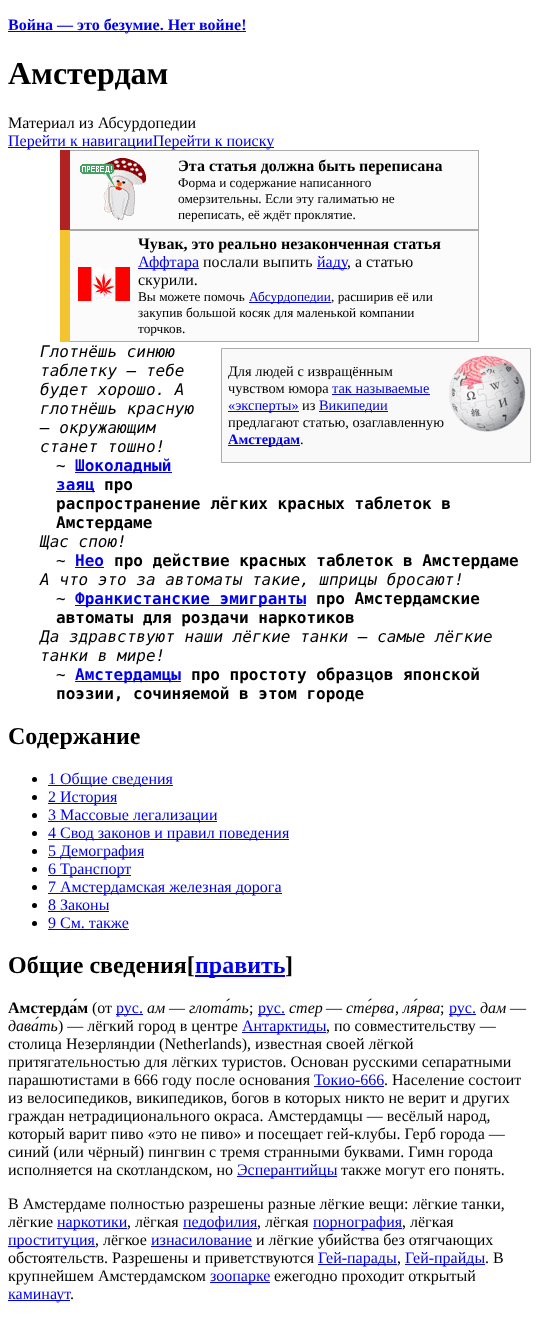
(async () => {
  const canvas = document.querySelector("canvas");
  canvas.width = 539;
  canvas.height = 1332;
  const ctx = canvas.getContext("2d");
  ctx.miterLimit = 4;
  ctx.fontKerning = "normal";
  async function loadImage(src) {
    const img = new Image();
    img.src = src;
    await img.decode();
    return img;
  }

  ctx.fillStyle = "#ffffff";
  ctx.fillRect(0, 0, 539, 1332);
  for (const [x, y, w, h, color] of [
    [8, 31, 238, 1, "#0000ee"],
    [8, 147, 266, 1, "#0000ee"],
    [70, 151, 408, 78, "#fbfbfb"],
    [70, 150, 409, 1, "#aaaaaa"],
    [478, 150, 1, 80, "#aaaaaa"],
    [70, 229, 409, 2, "#aaaaaa"],
    [60, 150, 10, 80, "#b22222"],
  ]) {
    ctx.fillStyle = color;
    ctx.fillRect(x, y, w, h);
  }
  ctx.drawImage(await loadImage("img/1.png"), 79, 158, 67, 62);
  for (const [x, y, w, h, color] of [
    [70, 231, 408, 110, "#fbfbfb"],
    [478, 230, 1, 112, "#aaaaaa"],
    [70, 341, 409, 1, "#aaaaaa"],
    [60, 230, 10, 112, "#f4c430"],
  ]) {
    ctx.fillStyle = color;
    ctx.fillRect(x, y, w, h);
  }
  ctx.drawImage(await loadImage("img/2.png"), 78, 267, 52, 34);
  for (const [x, y, w, h, color] of [
    [138, 268, 61, 1, "#0000ee"],
    [317, 268, 30, 1, "#0000ee"],
    [249, 302, 82, 1, "#0000ee"],
  ]) {
    ctx.fillStyle = color;
    ctx.fillRect(x, y, w, h);
  }
  ctx.fillStyle = "#f9f9f9";
  ctx.beginPath();
  ctx.rect(221.5, 348.5, 309, 114);
  ctx.fill();
  ctx.strokeStyle = "#aaaaaa";
  ctx.stroke();
  for (const [x, y, w, h, color] of [
    [332, 394, 98, 1, "#0000ee"],
    [228, 411, 71, 1, "#0000ee"],
    [319, 411, 69, 1, "#0000ee"],
    [228, 445, 72, 1, "#0000ee"],
  ]) {
    ctx.fillStyle = color;
    ctx.fillRect(x, y, w, h);
  }
  ctx.drawImage(await loadImage("img/3.png"), 449, 355, 77, 77);
  for (const [x, y, w, h, color] of [
    [75, 472, 97, 1, "#0000ee"],
    [56, 491, 39, 1, "#0000ee"],
    [75, 567, 29, 1, "#0000ee"],
    [75, 605, 231, 1, "#0000ee"],
    [75, 681, 106, 1, "#0000ee"],
  ]) {
    ctx.fillStyle = color;
    ctx.fillRect(x, y, w, h);
  }
  ctx.fillStyle = "#000000";
  ctx.beginPath();
  ctx.arc(34.5, 779.5, 2.5, 0, Math.PI * 2);
  ctx.fill();
  ctx.fillStyle = "#0000ee";
  ctx.fillRect(48, 785, 125, 1);
  ctx.fillStyle = "#000000";
  ctx.beginPath();
  ctx.arc(34.5, 797.5, 2.5, 0, Math.PI * 2);
  ctx.fill();
  ctx.fillStyle = "#0000ee";
  ctx.fillRect(48, 803, 69, 1);
  ctx.fillStyle = "#000000";
  ctx.beginPath();
  ctx.arc(34.5, 815.5, 2.5, 0, Math.PI * 2);
  ctx.fill();
  ctx.fillStyle = "#0000ee";
  ctx.fillRect(48, 821, 169, 1);
  ctx.fillStyle = "#000000";
  ctx.beginPath();
  ctx.arc(34.5, 833.5, 2.5, 0, Math.PI * 2);
  ctx.fill();
  ctx.fillStyle = "#0000ee";
  ctx.fillRect(48, 839, 241, 1);
  ctx.fillStyle = "#000000";
  ctx.beginPath();
  ctx.arc(34.5, 851.5, 2.5, 0, Math.PI * 2);
  ctx.fill();
  ctx.fillStyle = "#0000ee";
  ctx.fillRect(48, 857, 96, 1);
  ctx.fillStyle = "#000000";
  ctx.beginPath();
  ctx.arc(34.5, 869.5, 2.5, 0, Math.PI * 2);
  ctx.fill();
  ctx.fillStyle = "#0000ee";
  ctx.fillRect(48, 875, 83, 1);
  ctx.fillStyle = "#000000";
  ctx.beginPath();
  ctx.arc(34.5, 887.5, 2.5, 0, Math.PI * 2);
  ctx.fill();
  ctx.fillStyle = "#0000ee";
  ctx.fillRect(48, 893, 234, 1);
  ctx.fillStyle = "#000000";
  ctx.beginPath();
  ctx.arc(34.5, 905.5, 2.5, 0, Math.PI * 2);
  ctx.fill();
  ctx.fillStyle = "#0000ee";
  ctx.fillRect(48, 911, 61, 1);
  ctx.fillStyle = "#000000";
  ctx.beginPath();
  ctx.arc(34.5, 923.5, 2.5, 0, Math.PI * 2);
  ctx.fill();
  for (const [x, y, w, h, color] of [
    [48, 929, 81, 1, "#0000ee"],
    [195, 975, 90, 2, "#0000ee"],
    [116, 1014, 27, 1, "#0000ee"],
    [258, 1014, 27, 1, "#0000ee"],
    [449, 1014, 27, 1, "#0000ee"],
    [242, 1032, 84, 1, "#0000ee"],
    [314, 1086, 70, 1, "#0000ee"],
    [237, 1176, 100, 1, "#0000ee"],
    [57, 1228, 70, 1, "#0000ee"],
    [183, 1228, 74, 1, "#0000ee"],
    [313, 1228, 89, 1, "#0000ee"],
    [8, 1246, 87, 1, "#0000ee"],
    [151, 1246, 101, 1, "#0000ee"],
    [318, 1264, 79, 1, "#0000ee"],
    [405, 1264, 80, 1, "#0000ee"],
    [210, 1282, 60, 1, "#0000ee"],
    [8, 1300, 62, 1, "#0000ee"],
  ]) {
    ctx.fillStyle = color;
    ctx.fillRect(x, y, w, h);
  }
  ctx.font = "bold 16px Liberation Serif";
  ctx.fillText("Война — это безумие. Нет войне!", 8, 30);
  ctx.font = "bold 32px Liberation Serif";
  ctx.fillStyle = "#000000";
  ctx.fillText("Амстердам", 8, 84);
  ctx.font = "16px Liberation Serif";
  ctx.fillText("Материал из Абсурдопедии", 8, 128);
  ctx.fillStyle = "#0000ee";
  ctx.fillText("Перейти к навигацииПерейти к поиску", 8, 146);
  ctx.font = "bold 16px Liberation Serif";
  ctx.fillStyle = "#000000";
  ctx.fillText("Эта статья должна быть переписана", 178, 171);
  ctx.font = "13.3px Liberation Serif";
  for (const [text, x, y] of [
    ["Форма и содержание написанного", 178, 187],
    ["омерзительны. Если эту галиматью не", 178, 203],
    ["переписать, её ждёт проклятие.", 178, 219],
  ]) {
    ctx.fillText(text, x, y);
  }
  ctx.font = "bold 16px Liberation Serif";
  ctx.fillText("Чувак, это реально незаконченная статья", 138, 249);
  ctx.font = "16px Liberation Serif";
  ctx.fillStyle = "#0000ee";
  ctx.fillText("Аффтара", 138, 267);
  ctx.fillStyle = "#000000";
  ctx.fillText("послали выпить", 203, 267);
  ctx.fillStyle = "#0000ee";
  ctx.fillText("йаду", 317, 267);
  ctx.fillStyle = "#000000";
  ctx.fillText(", а статью", 347, 267);
  ctx.fillText("скурили.", 138, 285);
  ctx.font = "13.3px Liberation Serif";
  ctx.fillText("Вы можете помочь", 138, 301);
  ctx.fillStyle = "#0000ee";
  ctx.fillText("Абсурдопедии", 249, 301);
  ctx.fillStyle = "#000000";
  for (const [text, x, y] of [
    [", расширив её или", 331, 301],
    ["закупив большой косяк для маленькой компании", 138, 317],
    ["торчков.", 138, 333],
  ]) {
    ctx.fillText(text, x, y);
  }
  ctx.font = "italic 16px DejaVu Sans Mono";
  for (const [text, x, y] of [
    ["Глотнёшь синюю", 40, 357],
    ["таблетку — тебе", 40, 376],
    ["будет хорошо. А", 40, 395],
    ["глотнёшь красную", 40, 414],
    ["— окружающим", 40, 433],
    ["станет тошно!", 40, 452],
  ]) {
    ctx.fillText(text, x, y);
  }
  ctx.font = "14.4px Liberation Serif";
  ctx.fillText("Для людей с извращённым", 228, 376);
  ctx.fillText("чувством юмора", 228, 393);
  ctx.fillStyle = "#0000ee";
  ctx.fillText("так называемые", 332, 393);
  ctx.fillText("«эксперты»", 228, 410);
  ctx.fillStyle = "#000000";
  ctx.fillText("из", 302, 410);
  ctx.fillStyle = "#0000ee";
  ctx.fillText("Википедии", 319, 410);
  ctx.fillStyle = "#000000";
  ctx.fillText("предлагают статью, озаглавленную", 228, 427);
  ctx.font = "bold 14.4px Liberation Serif";
  ctx.fillStyle = "#0000ee";
  ctx.fillText("Амстердам", 228, 444);
  ctx.font = "14.4px Liberation Serif";
  ctx.fillStyle = "#000000";
  ctx.fillText(".", 300, 444);
  ctx.font = "16px DejaVu Sans Mono";
  ctx.fillText("~", 56, 471);
  ctx.font = "bold 16px DejaVu Sans Mono";
  ctx.fillStyle = "#0000ee";
  ctx.fillText("Шоколадный", 75, 471);
  ctx.fillText("заяц", 56, 490);
  ctx.fillStyle = "#000000";
  for (const [text, x, y] of [
    ["про", 104, 490],
    ["распространение лёгких красных таблеток в", 56, 509],
    ["Амстердаме", 56, 528],
  ]) {
    ctx.fillText(text, x, y);
  }
  ctx.font = "italic 16px DejaVu Sans Mono";
  ctx.fillText("Щас спою!", 40, 547);
  ctx.font = "16px DejaVu Sans Mono";
  ctx.fillText("~", 56, 566);
  ctx.font = "bold 16px DejaVu Sans Mono";
  ctx.fillStyle = "#0000ee";
  ctx.fillText("Нео", 75, 566);
  ctx.fillStyle = "#000000";
  ctx.fillText("про действие красных таблеток в Амстердаме", 114, 566);
  ctx.font = "italic 16px DejaVu Sans Mono";
  ctx.fillText("А что это за автоматы такие, шприцы бросают!", 40, 585);
  ctx.font = "16px DejaVu Sans Mono";
  ctx.fillText("~", 56, 604);
  ctx.font = "bold 16px DejaVu Sans Mono";
  ctx.fillStyle = "#0000ee";
  ctx.fillText("Франкистанские эмигранты", 75, 604);
  ctx.fillStyle = "#000000";
  ctx.fillText("про Амстердамские", 316, 604);
  ctx.fillText("автоматы для роздачи наркотиков", 56, 623);
  ctx.font = "italic 16px DejaVu Sans Mono";
  ctx.fillText("Да здравствуют наши лёгкие танки — самые лёгкие", 40, 642);
  ctx.fillText("танки в мире!", 40, 661);
  ctx.font = "16px DejaVu Sans Mono";
  ctx.fillText("~", 56, 680);
  ctx.font = "bold 16px DejaVu Sans Mono";
  ctx.fillStyle = "#0000ee";
  ctx.fillText("Амстердамцы", 75, 680);
  ctx.fillStyle = "#000000";
  ctx.fillText("про простоту образцов японской", 191, 680);
  ctx.fillText("поэзии, сочиняемой в этом городе", 56, 699);
  ctx.font = "bold 24px Liberation Serif";
  ctx.fillText("Содержание", 8, 744);
  ctx.font = "16px Liberation Serif";
  ctx.fillStyle = "#0000ee";
  for (const [text, x, y] of [
    ["1 Общие сведения", 48, 784],
    ["2 История", 48, 802],
    ["3 Массовые легализации", 48, 820],
    ["4 Свод законов и правил поведения", 48, 838],
    ["5 Демография", 48, 856],
    ["6 Транспорт", 48, 874],
    ["7 Амстердамская железная дорога", 48, 892],
    ["8 Законы", 48, 910],
    ["9 См. также", 48, 928],
  ]) {
    ctx.fillText(text, x, y);
  }
  ctx.font = "bold 24px Liberation Serif";
  ctx.fillStyle = "#000000";
  ctx.fillText("Общие сведения[", 8, 973);
  ctx.fillStyle = "#0000ee";
  ctx.fillText("править", 195, 973);
  ctx.fillStyle = "#000000";
  ctx.fillText("]", 285, 973);
  ctx.font = "bold 16px Liberation Serif";
  ctx.fillText("Амстерда́м", 8, 1013);
  ctx.font = "16px Liberation Serif";
  ctx.fillText("(от", 92, 1013);
  ctx.fillStyle = "#0000ee";
  ctx.fillText("рус.", 116, 1013);
  ctx.font = "italic 16px Liberation Serif";
  ctx.fillStyle = "#000000";
  ctx.fillText("ам", 147, 1013);
  ctx.font = "16px Liberation Serif";
  ctx.fillText("—", 169, 1013);
  ctx.font = "italic 16px Liberation Serif";
  ctx.fillText("глота́ть", 189, 1013);
  ctx.font = "16px Liberation Serif";
  ctx.fillText(";", 249, 1013);
  ctx.fillStyle = "#0000ee";
  ctx.fillText("рус.", 258, 1013);
  ctx.font = "italic 16px Liberation Serif";
  ctx.fillStyle = "#000000";
  ctx.fillText("стер", 289, 1013);
  ctx.font = "16px Liberation Serif";
  ctx.fillText("—", 326, 1013);
  ctx.font = "italic 16px Liberation Serif";
  ctx.fillText("сте́рва", 346, 1013);
  ctx.fillText("ля́рва", 403, 1013);
  ctx.font = "16px Liberation Serif";
  ctx.fillText(";", 440, 1013);
  ctx.fillStyle = "#0000ee";
  ctx.fillText("рус.", 449, 1013);
  ctx.font = "italic 16px Liberation Serif";
  ctx.fillStyle = "#000000";
  ctx.fillText("дам", 480, 1013);
  ctx.font = "16px Liberation Serif";
  ctx.fillText("—", 510, 1013);
  ctx.fillText(",", 395, 1013);
  ctx.font = "italic 16px Liberation Serif";
  ctx.fillText("дава́ть", 8, 1031);
  ctx.font = "16px Liberation Serif";
  ctx.fillText(") — лёгкий город в центре", 58, 1031);
  ctx.fillStyle = "#0000ee";
  ctx.fillText("Антарктиды", 242, 1031);
  ctx.fillStyle = "#000000";
  for (const [text, x, y] of [
    [", по совместительству —", 326, 1031],
    ["столица Незерляндии (Netherlands), известная своей лёгкой", 8, 1049],
    ["притягательностью для лёгких туристов. Основан русскими сепаратными", 8, 1067],
    ["парашютистами в 666 году после основания", 8, 1085],
  ]) {
    ctx.fillText(text, x, y);
  }
  ctx.fillStyle = "#0000ee";
  ctx.fillText("Токио-666", 314, 1085);
  ctx.fillStyle = "#000000";
  for (const [text, x, y] of [
    [". Население состоит", 384, 1085],
    ["из велосипедиков, википедиков, богов в которых никто не верит и других", 8, 1103],
    ["граждан нетрадиционального окраса. Амстердамцы — весёлый народ,", 8, 1121],
    ["который варит пиво «это не пиво» и посещает гей-клубы. Герб города —", 8, 1139],
    ["синий (или чёрный) пингвин с тремя странными буквами. Гимн города", 8, 1157],
    ["исполняется на скотландском, но", 8, 1175],
  ]) {
    ctx.fillText(text, x, y);
  }
  ctx.fillStyle = "#0000ee";
  ctx.fillText("Эсперантийцы", 237, 1175);
  ctx.fillStyle = "#000000";
  for (const [text, x, y] of [
    ["также могут его понять.", 341, 1175],
    ["В Амстердаме полностью разрешены разные лёгкие вещи: лёгкие танки,", 8, 1209],
    ["лёгкие", 8, 1227],
  ]) {
    ctx.fillText(text, x, y);
  }
  ctx.fillStyle = "#0000ee";
  ctx.fillText("наркотики", 57, 1227);
  ctx.fillStyle = "#000000";
  ctx.fillText(", лёгкая", 127, 1227);
  ctx.fillStyle = "#0000ee";
  ctx.fillText("педофилия", 183, 1227);
  ctx.fillStyle = "#000000";
  ctx.fillText(", лёгкая", 257, 1227);
  ctx.fillStyle = "#0000ee";
  ctx.fillText("порнография", 313, 1227);
  ctx.fillStyle = "#000000";
  ctx.fillText(", лёгкая", 402, 1227);
  ctx.fillStyle = "#0000ee";
  ctx.fillText("проституция", 8, 1245);
  ctx.fillStyle = "#000000";
  ctx.fillText(", лёгкое", 95, 1245);
  ctx.fillStyle = "#0000ee";
  ctx.fillText("изнасилование", 151, 1245);
  ctx.fillStyle = "#000000";
  ctx.fillText("и лёгкие убийства без отягчающих", 256, 1245);
  ctx.fillText("обстоятельств. Разрешены и приветствуются", 8, 1263);
  ctx.fillStyle = "#0000ee";
  ctx.fillText("Гей-парады", 318, 1263);
  ctx.fillStyle = "#000000";
  ctx.fillText(",", 397, 1263);
  ctx.fillStyle = "#0000ee";
  ctx.fillText("Гей-прайды", 405, 1263);
  ctx.fillStyle = "#000000";
  ctx.fillText(". В", 485, 1263);
  ctx.fillText("крупнейшем Амстердамском", 8, 1281);
  ctx.fillStyle = "#0000ee";
  ctx.fillText("зоопарке", 210, 1281);
  ctx.fillStyle = "#000000";
  ctx.fillText("ежегодно проходит открытый", 274, 1281);
  ctx.fillStyle = "#0000ee";
  ctx.fillText("каминаут", 8, 1299);
  ctx.fillStyle = "#000000";
  ctx.fillText(".", 70, 1299);
})();
